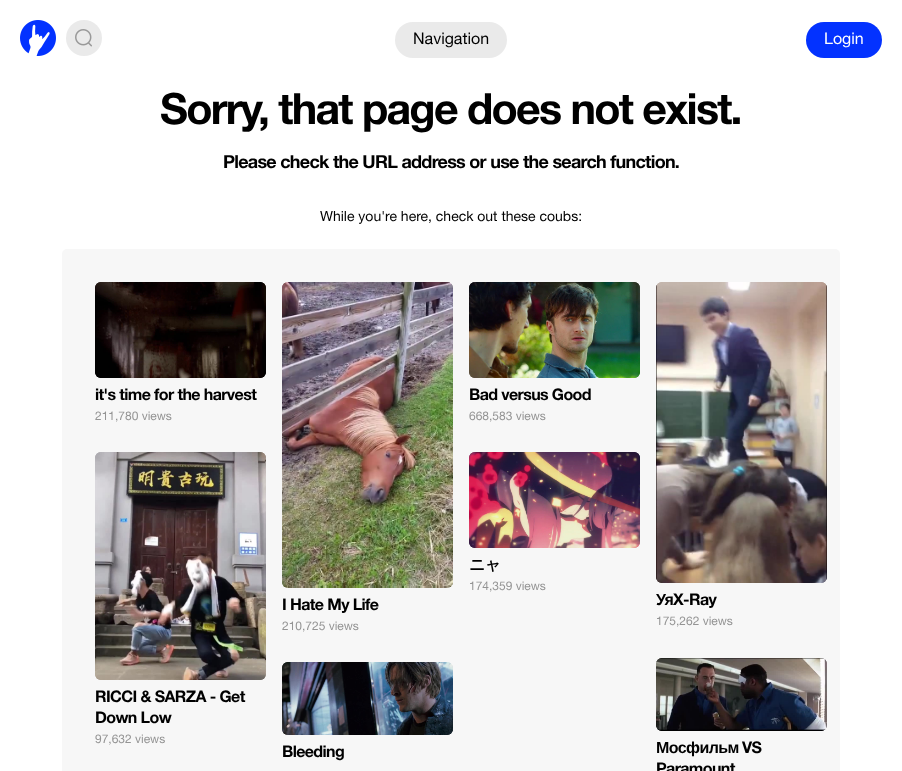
(async () => {
  const canvas = document.querySelector("canvas");
  canvas.width = 902;
  canvas.height = 771;
  const ctx = canvas.getContext("2d");
  ctx.miterLimit = 4;
  ctx.fontKerning = "normal";
  async function loadImage(src) {
    const img = new Image();
    img.src = src;
    await img.decode();
    return img;
  }

  ctx.fillStyle = "#ffffff";
  ctx.fillRect(0, 0, 902, 771);
  ctx.drawImage(await loadImage("img/1.png"), 20, 20, 36, 36);
  ctx.fillStyle = "#eaeaea";
  ctx.beginPath();
  ctx.arc(84, 38, 18, 0, Math.PI * 2);
  ctx.fill();
  ctx.drawImage(await loadImage("img/2.png"), 75, 29, 17, 18);
  ctx.beginPath();
  ctx.roundRect(395, 22, 112, 36, 18);
  ctx.fill();
  ctx.fillStyle = "#0332ff";
  ctx.beginPath();
  ctx.roundRect(806, 22, 76, 36, 18);
  ctx.fill();
  ctx.fillStyle = "#f7f7f7";
  ctx.beginPath();
  ctx.roundRect(62, 249, 778, 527, 5);
  ctx.fill();
  ctx.drawImage(await loadImage("img/3.png"), 95, 282, 171, 96);
  ctx.drawImage(await loadImage("img/4.png"), 95, 282, 171, 96);
  ctx.drawImage(await loadImage("img/5.png"), 469, 282, 171, 96);
  ctx.drawImage(await loadImage("img/6.png"), 469, 282, 171, 96);
  ctx.drawImage(await loadImage("img/7.png"), 469, 452, 171, 96);
  ctx.drawImage(await loadImage("img/8.png"), 469, 452, 171, 96);
  ctx.drawImage(await loadImage("img/9.png"), 282, 282, 171, 306);
  ctx.drawImage(await loadImage("img/10.png"), 282, 282, 171, 305);
  ctx.drawImage(await loadImage("img/11.png"), 656, 282, 171, 301);
  ctx.drawImage(await loadImage("img/12.png"), 656, 282, 171, 301);
  ctx.drawImage(await loadImage("img/13.png"), 95, 452, 171, 228);
  ctx.drawImage(await loadImage("img/14.png"), 95, 452, 171, 228);
  ctx.drawImage(await loadImage("img/15.png"), 282, 662, 171, 73);
  ctx.drawImage(await loadImage("img/16.png"), 282, 662, 171, 73);
  ctx.drawImage(await loadImage("img/17.png"), 656, 658, 171, 73);
  ctx.drawImage(await loadImage("img/18.png"), 656, 658, 171, 73);
  ctx.font = "16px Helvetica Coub";
  ctx.fillStyle = "#000000";
  ctx.fillText("Navigation", 413, 44);
  ctx.fillStyle = "#ffffff";
  ctx.fillText("Login", 824, 44);
  ctx.letterSpacing = "-1.75px";
  ctx.font = "bold 43px Helvetica Coub";
  ctx.fillStyle = "#000000";
  ctx.fillText("Sorry, that page does not exist.", 160, 124);
  ctx.letterSpacing = "-0.72px";
  ctx.font = "bold 18px Helvetica Coub";
  ctx.fillText("Please check the URL address or use the search function.", 223, 168);
  ctx.letterSpacing = "0px";
  ctx.font = "14px Helvetica Coub";
  ctx.fillText("While you're here, check out these coubs:", 320, 221);
  ctx.letterSpacing = "-0.6px";
  ctx.font = "bold 16px Helvetica Coub";
  ctx.fillText("it's time for the harvest", 95, 400);
  ctx.letterSpacing = "0px";
  ctx.font = "12px Helvetica Coub";
  ctx.fillStyle = "#949494";
  ctx.fillText("211,780 views", 95, 420);
  ctx.letterSpacing = "-0.6px";
  ctx.font = "bold 16px Helvetica Coub";
  ctx.fillStyle = "#000000";
  ctx.fillText("Bad versus Good", 469, 400);
  ctx.letterSpacing = "0px";
  ctx.font = "12px Helvetica Coub";
  ctx.fillStyle = "#949494";
  ctx.fillText("668,583 views", 469, 420);
  ctx.letterSpacing = "-0.6px";
  ctx.font = "bold 16px WenQuanYi Zen Hei";
  ctx.fillStyle = "#000000";
  ctx.fillText("ニャ", 469, 570);
  ctx.letterSpacing = "0px";
  ctx.font = "12px Helvetica Coub";
  ctx.fillStyle = "#949494";
  ctx.fillText("174,359 views", 469, 590);
  ctx.letterSpacing = "-0.6px";
  ctx.font = "bold 16px Helvetica Coub";
  ctx.fillStyle = "#000000";
  ctx.fillText("I Hate My Life", 282, 610);
  ctx.letterSpacing = "0px";
  ctx.font = "12px Helvetica Coub";
  ctx.fillStyle = "#949494";
  ctx.fillText("210,725 views", 282, 630);
  ctx.letterSpacing = "-0.6px";
  ctx.font = "bold 16px Liberation Sans";
  ctx.fillStyle = "#000000";
  ctx.fillText("Уя", 656, 605);
  ctx.font = "bold 16px Helvetica Coub";
  ctx.fillText("X-Ray", 673, 605);
  ctx.letterSpacing = "0px";
  ctx.font = "12px Helvetica Coub";
  ctx.fillStyle = "#949494";
  ctx.fillText("175,262 views", 656, 625);
  ctx.letterSpacing = "-0.6px";
  ctx.font = "bold 16px Helvetica Coub";
  ctx.fillStyle = "#000000";
  ctx.fillText("RICCI & SARZA - Get", 95, 702);
  ctx.fillText("Down Low", 95, 723);
  ctx.letterSpacing = "0px";
  ctx.font = "12px Helvetica Coub";
  ctx.fillStyle = "#949494";
  ctx.fillText("97,632 views", 95, 743);
  ctx.letterSpacing = "-0.6px";
  ctx.font = "bold 16px Helvetica Coub";
  ctx.fillStyle = "#000000";
  ctx.fillText("Bleeding", 282, 757);
  ctx.font = "bold 16px Liberation Sans";
  ctx.fillText("Мосфильм", 656, 753);
  ctx.font = "bold 16px Helvetica Coub";
  ctx.fillText("VS", 742, 753);
  ctx.fillText("Paramount", 656, 774);
})();
